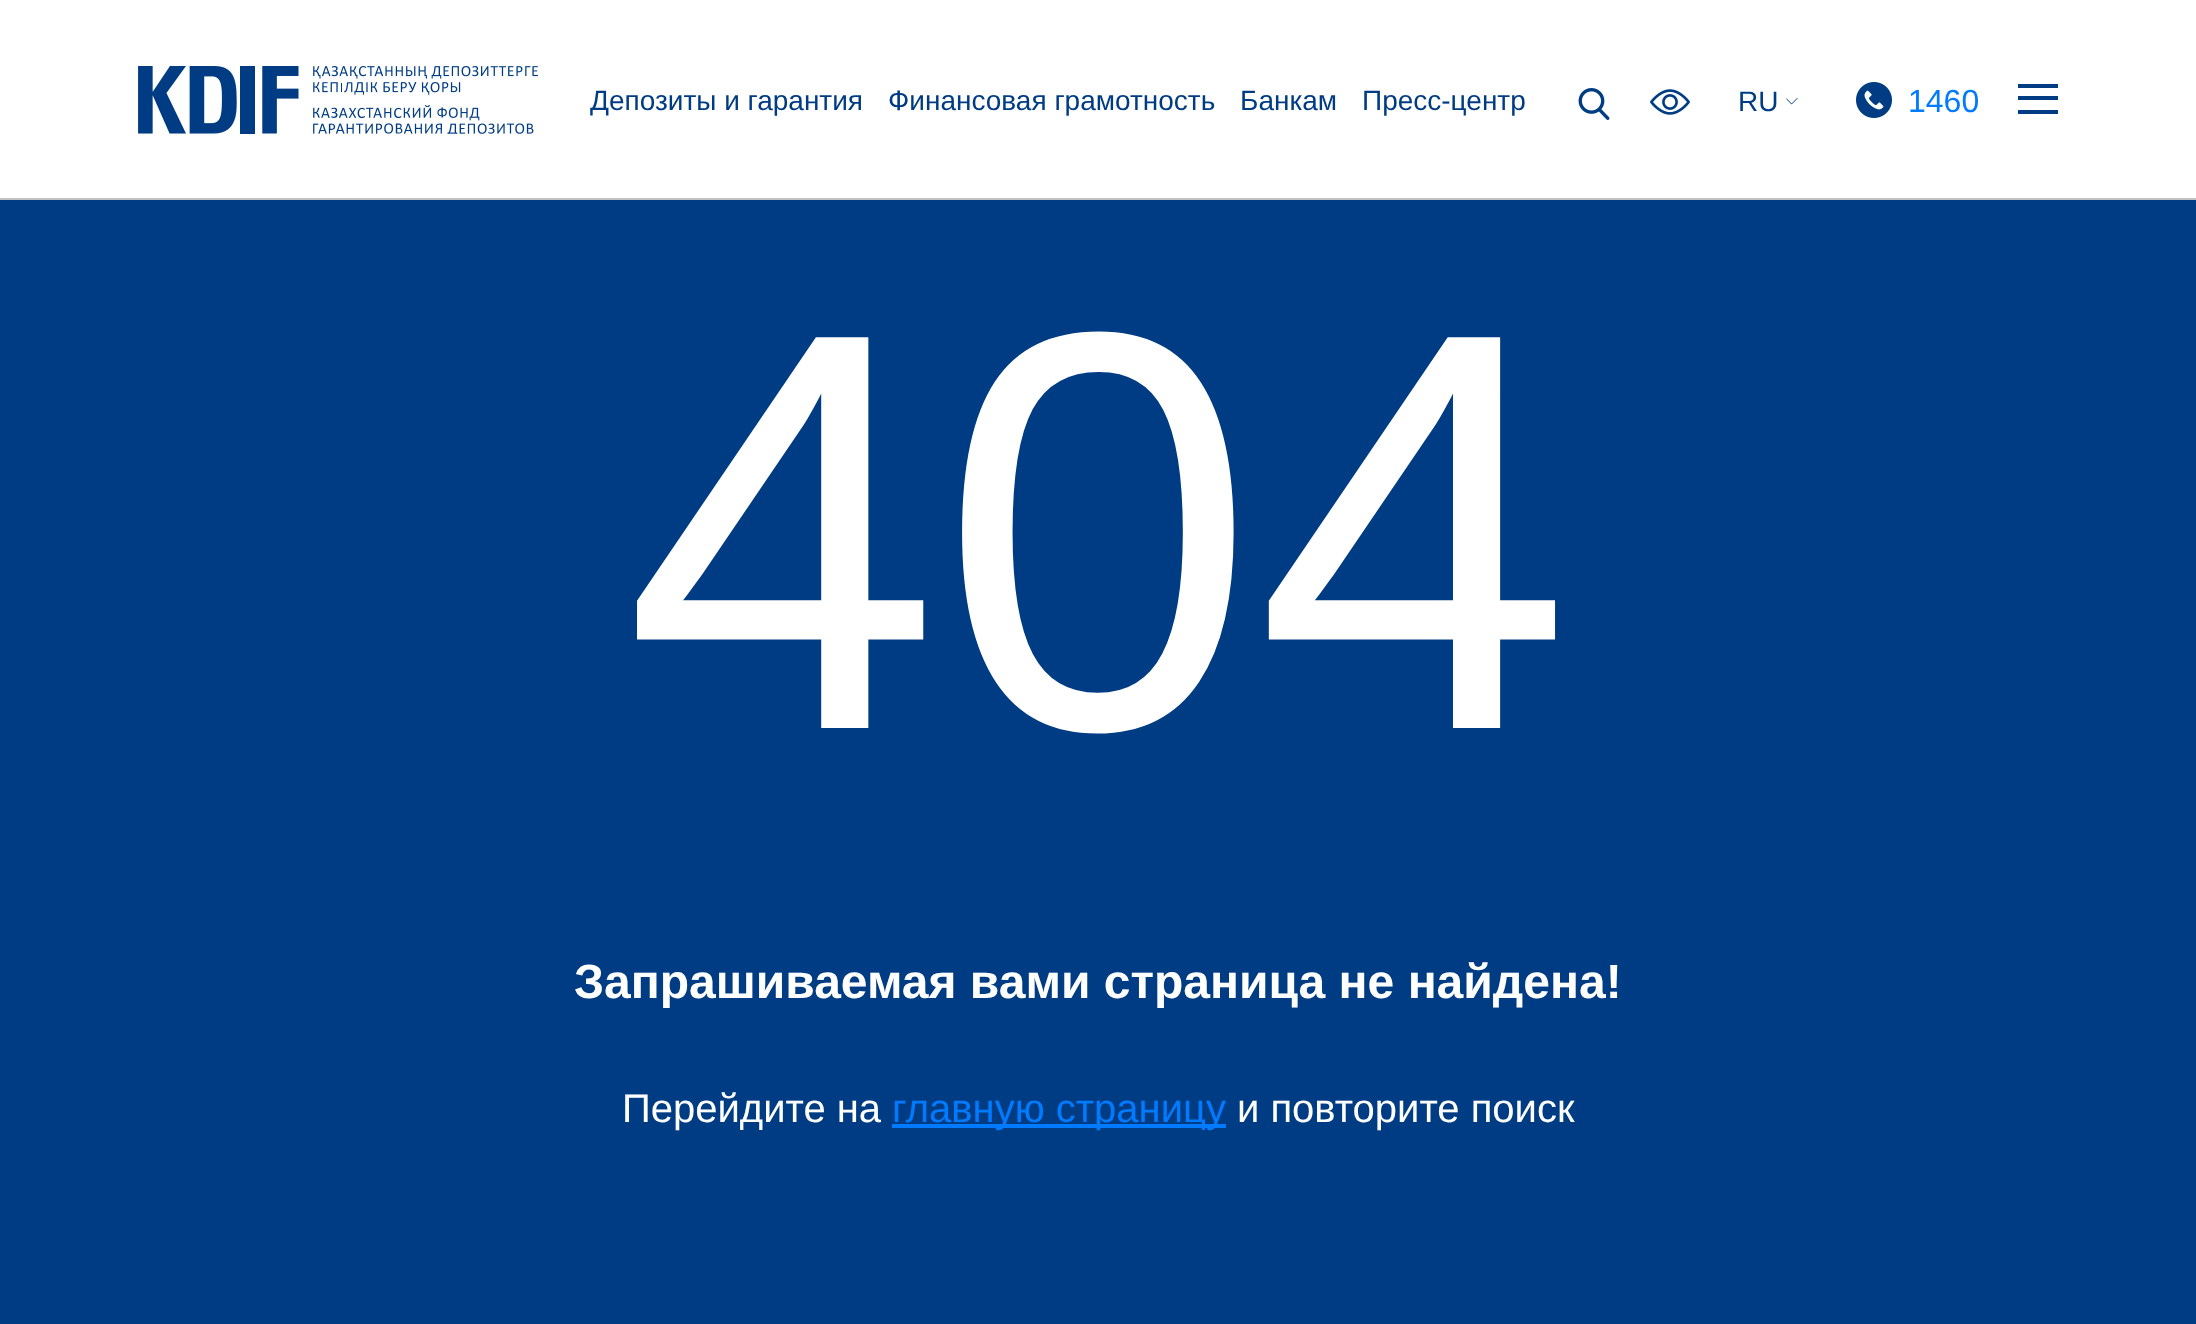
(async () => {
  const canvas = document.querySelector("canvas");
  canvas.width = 2196;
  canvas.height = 1324;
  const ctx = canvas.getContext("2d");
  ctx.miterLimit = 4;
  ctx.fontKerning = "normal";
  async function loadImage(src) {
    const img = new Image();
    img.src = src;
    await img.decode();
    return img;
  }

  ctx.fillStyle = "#003c83";
  ctx.fillRect(0, 0, 2196, 1324);
  ctx.fillStyle = "#ffffff";
  ctx.fillRect(0, 0, 2196, 198);
  ctx.fillStyle = "#c0c0c0";
  ctx.fillRect(0, 198, 2196, 2);
  ctx.drawImage(await loadImage("img/1.png"), 138, 66, 400, 68);
  ctx.drawImage(await loadImage("img/2.png"), 1578, 88, 32, 32);
  ctx.drawImage(await loadImage("img/3.png"), 1650, 89, 40, 26);
  ctx.drawImage(await loadImage("img/4.png"), 1786, 98, 12, 7);
  ctx.drawImage(await loadImage("img/5.png"), 1856, 82, 36, 36);
  for (const [x, y, w, h, color] of [
    [2018, 84, 40, 4, "#003c83"],
    [2018, 96, 40, 4, "#003c83"],
    [2018, 110, 40, 4, "#003c83"],
    [892, 1124, 334, 4, "#007bff"],
  ]) {
    ctx.fillStyle = color;
    ctx.fillRect(x, y, w, h);
  }
  ctx.font = "28px Liberation Sans";
  ctx.fillStyle = "#003c83";
  for (const [text, x, y] of [
    ["Депозиты и гарантия", 590, 110],
    ["Финансовая грамотность", 888, 110],
    ["Банкам", 1240, 110],
    ["Пресс-центр", 1362, 110],
    ["RU", 1738, 111],
  ]) {
    ctx.fillText(text, x, y);
  }
  ctx.font = "32px Liberation Sans";
  ctx.fillStyle = "#007bff";
  ctx.fillText("1460", 1908, 112);
  ctx.font = "568px Liberation Sans";
  ctx.fillStyle = "#ffffff";
  ctx.fillText("404", 624, 728);
  ctx.font = "bold 48px Liberation Sans";
  ctx.fillText("Запрашиваемая вами страница не найдена!", 574, 998);
  ctx.font = "40px Liberation Sans";
  ctx.fillText("Перейдите на", 622, 1122);
  ctx.fillStyle = "#007bff";
  ctx.fillText("главную страницу", 892, 1122);
  ctx.fillStyle = "#ffffff";
  ctx.fillText("и повторите поиск", 1237, 1122);
})();
